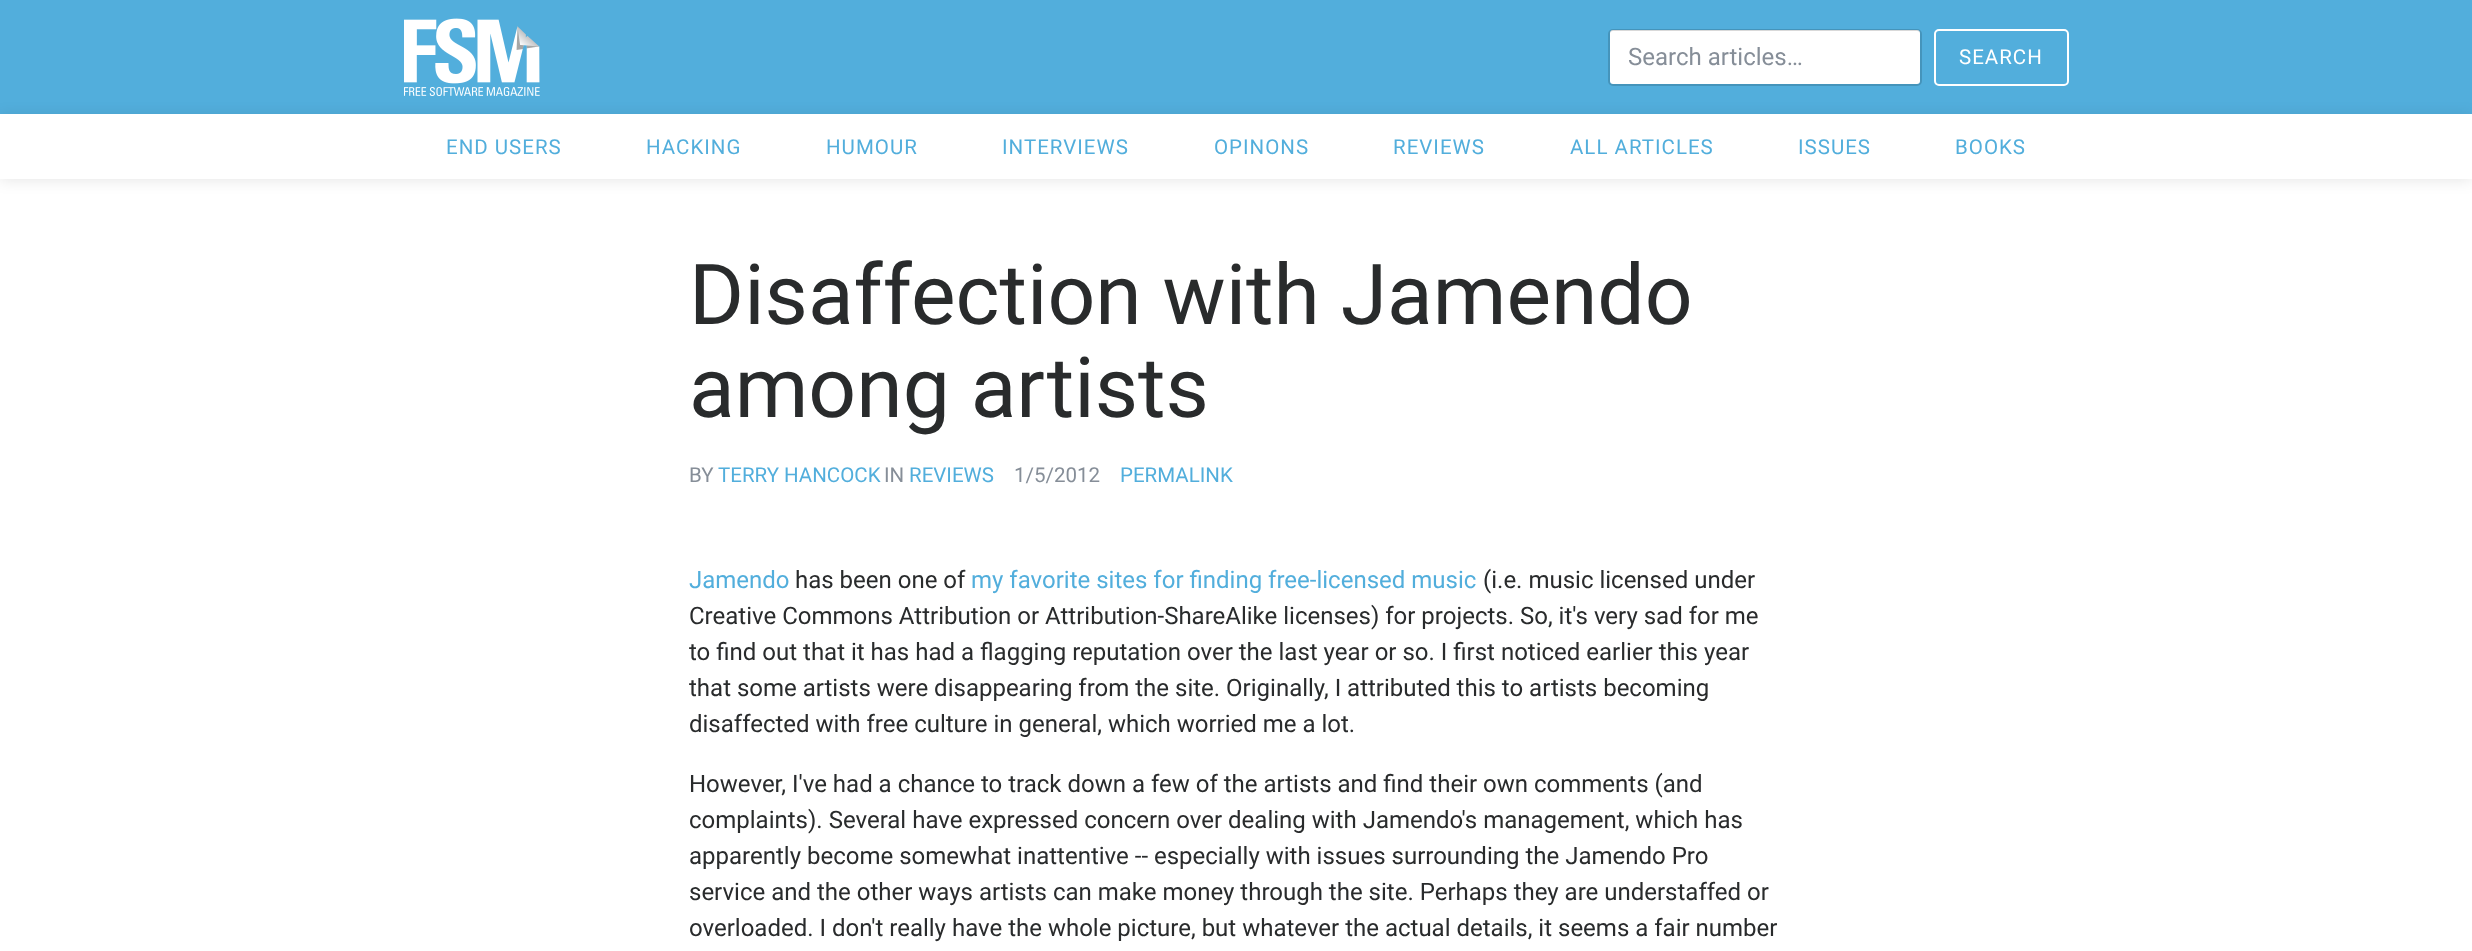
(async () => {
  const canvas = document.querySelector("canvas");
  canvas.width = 2472;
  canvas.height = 951;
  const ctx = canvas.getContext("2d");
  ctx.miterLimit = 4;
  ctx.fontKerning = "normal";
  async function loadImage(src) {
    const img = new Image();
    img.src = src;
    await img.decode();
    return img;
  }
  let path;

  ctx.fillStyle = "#ffffff";
  ctx.fillRect(0, 0, 2472, 951);
  ctx.fillStyle = "#52aedc";
  ctx.fillRect(0, 0, 2472, 114);
  ctx.drawImage(await loadImage("img/1.png"), 404, 18, 136, 78);
  ctx.fillStyle = "#ffffff";
  ctx.beginPath();
  ctx.roundRect(1610, 30, 310, 54, 3);
  ctx.fill();
  ctx.beginPath();
  ctx.roundRect(1609, 30, 312, 55, 4);
  ctx.strokeStyle = "rgba(0, 0, 0, 0.15)";
  ctx.lineWidth = 2;
  ctx.stroke();
  ctx.beginPath();
  ctx.roundRect(1935, 30, 133, 55, 4);
  ctx.strokeStyle = "#ffffff";
  ctx.stroke();
  ctx.save();
  path = new Path2D("M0 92H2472V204H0ZM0 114H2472V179H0Z");
  ctx.clip(path, "evenodd");
  ctx.fillStyle = "rgba(0, 0, 0, 0.1)";
  ctx.filter = "blur(7.5px)";
  ctx.beginPath();
  ctx.rect(0, 116, 2472, 64);
  ctx.fill();
  ctx.filter = "none";
  ctx.restore();
  ctx.font = "24px Roboto";
  ctx.fillStyle = "#868e98";
  ctx.fillText("Search articles…", 1628, 65);
  ctx.letterSpacing = "1px";
  ctx.font = "20.5px Roboto";
  ctx.fillStyle = "#ffffff";
  ctx.fillText("SEARCH", 1959, 64);
  ctx.fillStyle = "#52aedc";
  for (const [text, x, y] of [
    ["END USERS", 446, 154],
    ["HACKING", 646, 154],
    ["HUMOUR", 826, 154],
    ["INTERVIEWS", 1002, 154],
    ["OPINONS", 1214, 154],
    ["REVIEWS", 1393, 154],
    ["ALL ARTICLES", 1570, 154],
    ["ISSUES", 1798, 154],
    ["BOOKS", 1955, 154],
  ]) {
    ctx.fillText(text, x, y);
  }
  ctx.letterSpacing = "0px";
  ctx.font = "84px Roboto";
  ctx.fillStyle = "#292b2c";
  ctx.fillText("Disaffection with Jamendo", 689, 324);
  ctx.fillText("among artists", 689, 417);
  ctx.font = "20.5px Roboto";
  ctx.fillStyle = "#868e98";
  ctx.fillText("BY", 689, 482);
  ctx.fillStyle = "#52aedc";
  ctx.fillText("TERRY HANCOCK", 718, 482);
  ctx.fillStyle = "#868e98";
  ctx.fillText("IN", 884, 482);
  ctx.fillStyle = "#52aedc";
  ctx.fillText("REVIEWS", 909, 482);
  ctx.fillStyle = "#868e98";
  ctx.fillText("1/5/2012", 1014, 482);
  ctx.fillStyle = "#52aedc";
  ctx.fillText("PERMALINK", 1120, 482);
  ctx.font = "24px Roboto";
  ctx.fillText("Jamendo", 689, 588);
  ctx.fillStyle = "#292b2c";
  ctx.fillText("has been one of", 795, 588);
  ctx.fillStyle = "#52aedc";
  ctx.fillText("my favorite sites for finding free-licensed music", 971, 588);
  ctx.fillStyle = "#292b2c";
  for (const [text, x, y] of [
    ["(i.e. music licensed under", 1483, 588],
    ["Creative Commons Attribution or Attribution-ShareAlike licenses) for projects. So, it's very sad for me", 689, 624],
    ["to find out that it has had a flagging reputation over the last year or so. I first noticed earlier this year", 689, 660],
    ["that some artists were disappearing from the site. Originally, I attributed this to artists becoming", 689, 696],
    ["disaffected with free culture in general, which worried me a lot.", 689, 732],
    ["However, I've had a chance to track down a few of the artists and find their own comments (and", 689, 792],
    ["complaints). Several have expressed concern over dealing with Jamendo's management, which has", 689, 828],
    ["apparently become somewhat inattentive -- especially with issues surrounding the Jamendo Pro", 689, 864],
    ["service and the other ways artists can make money through the site. Perhaps they are understaffed or", 689, 900],
    ["overloaded. I don't really have the whole picture, but whatever the actual details, it seems a fair number", 689, 936],
  ]) {
    ctx.fillText(text, x, y);
  }
})();
